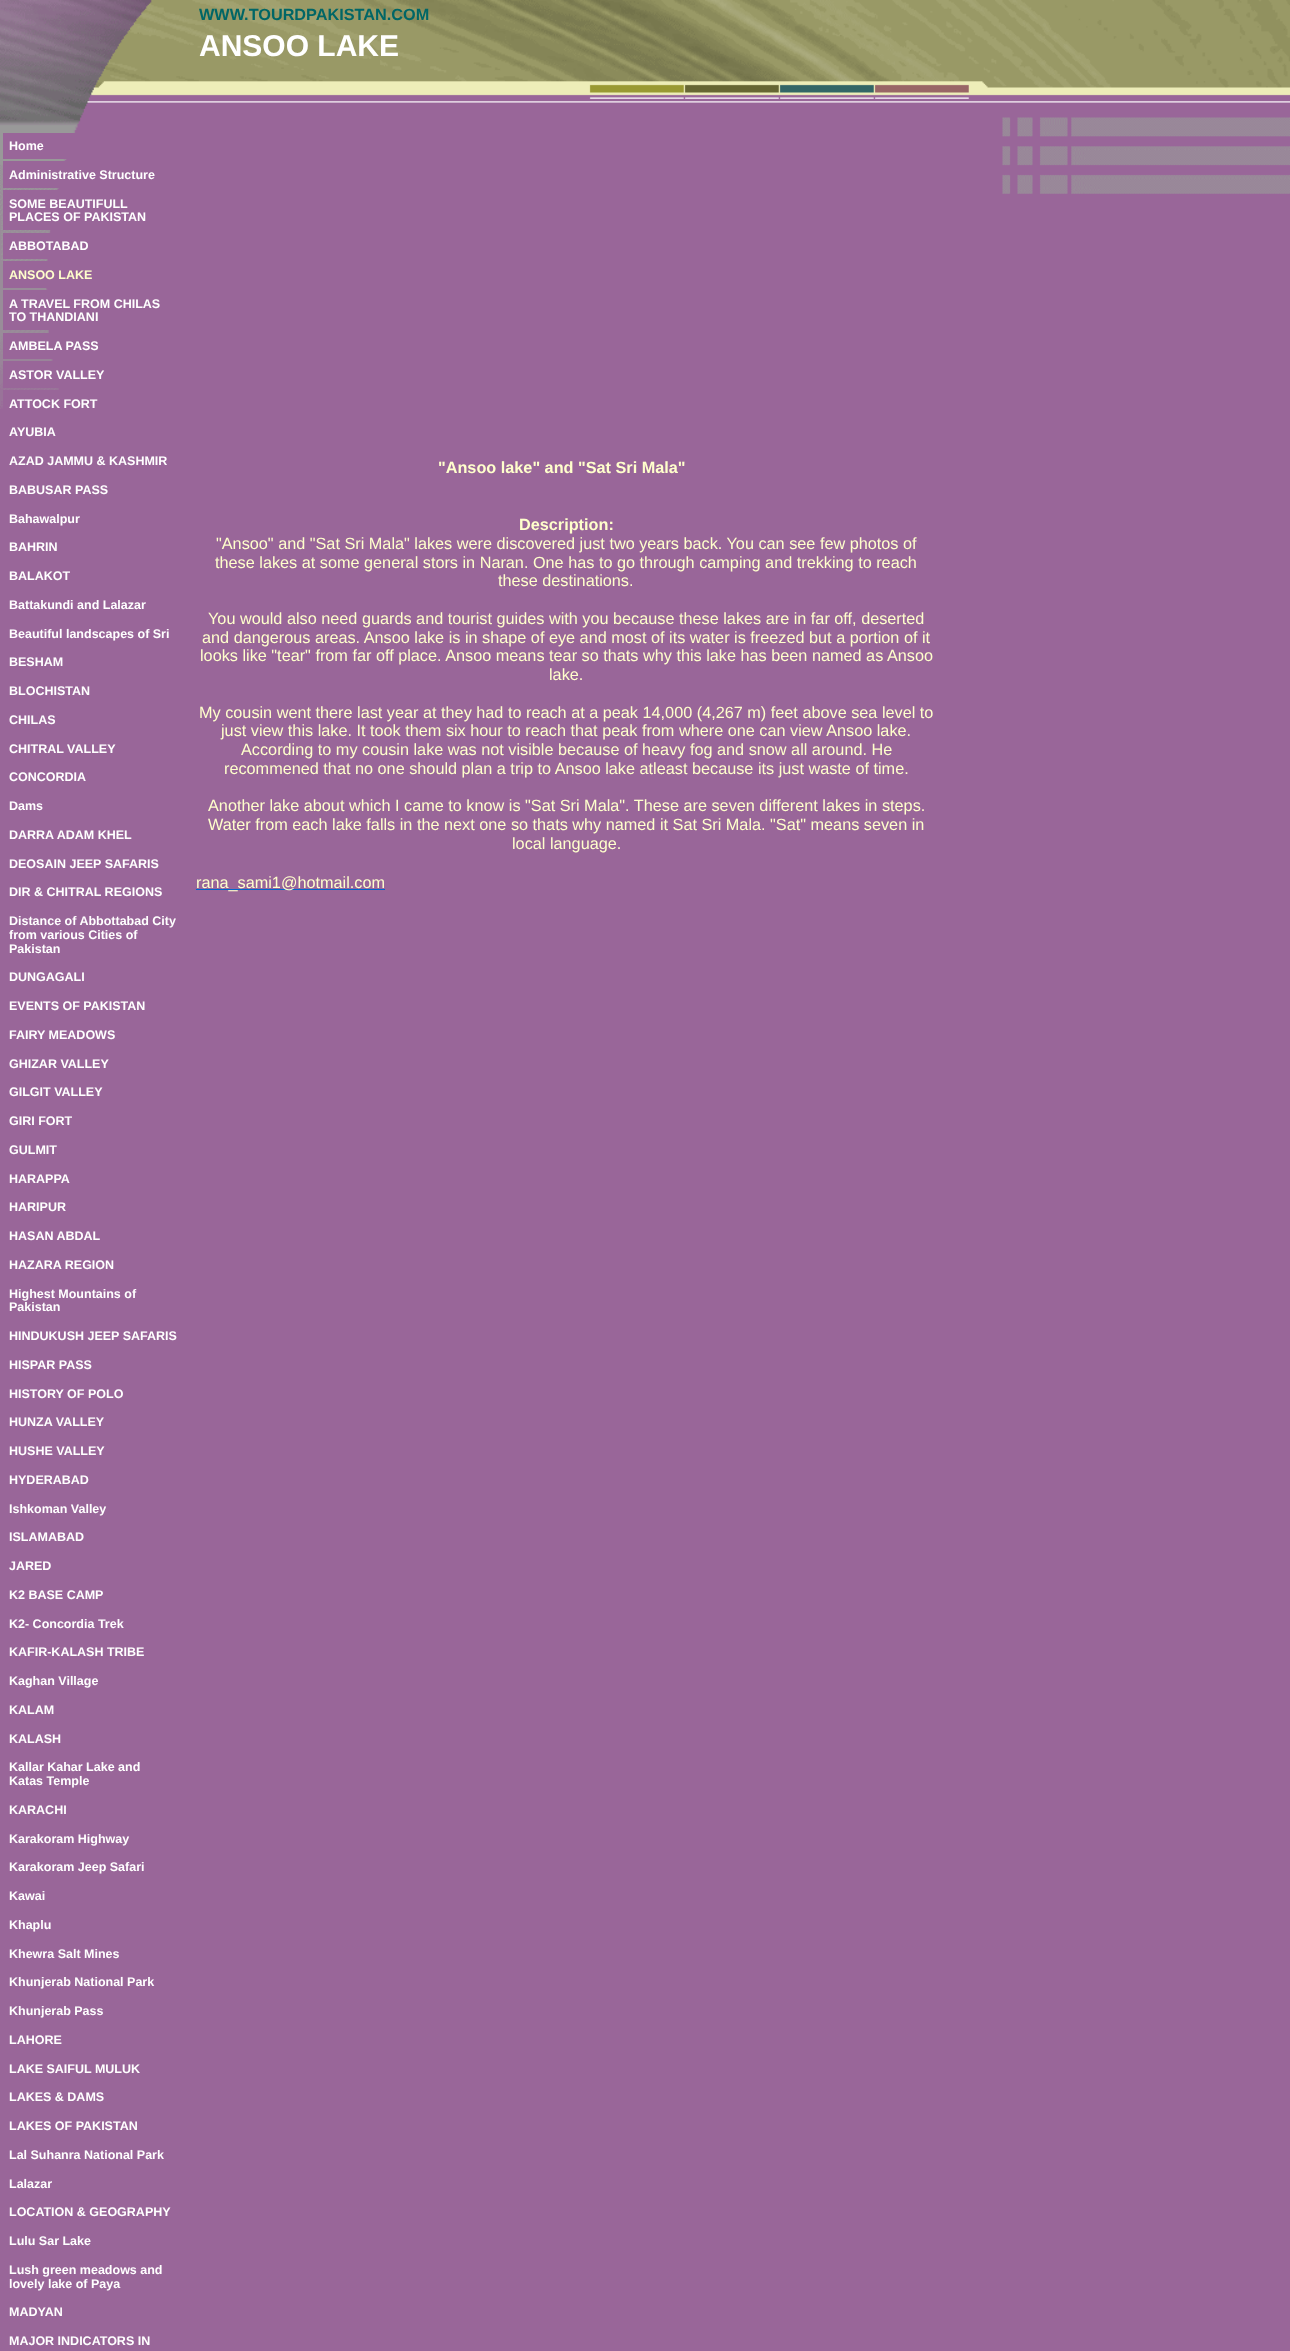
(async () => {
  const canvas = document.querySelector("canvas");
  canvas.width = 1290;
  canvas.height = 2351;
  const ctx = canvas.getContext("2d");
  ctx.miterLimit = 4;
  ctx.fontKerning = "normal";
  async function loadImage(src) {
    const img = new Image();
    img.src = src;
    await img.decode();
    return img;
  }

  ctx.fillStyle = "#996699";
  ctx.fillRect(0, 0, 1290, 2351);
  ctx.drawImage(await loadImage("img/1.png"), 0, 0, 1290, 409);
  for (const [x, y, w, h, color] of [
    [3, 133, 73, 26, "#996699"],
    [3, 161, 63, 27, "#996699"],
    [3, 190, 55, 40, "#996699"],
    [3, 233, 48, 26, "#996699"],
    [3, 261, 45, 27, "#996699"],
    [3, 290, 46, 40, "#996699"],
    [3, 333, 50, 26, "#996699"],
    [3, 361, 56, 27, "#996699"],
    [3, 390, 60, 19, "#996699"],
    [196, 889, 189, 1, "#0066cc"],
  ]) {
    ctx.fillStyle = color;
    ctx.fillRect(x, y, w, h);
  }
  ctx.font = "bold 16.25px Liberation Sans";
  ctx.fillStyle = "#006666";
  ctx.fillText("WWW.TOURDPAKISTAN.COM", 199, 20);
  ctx.font = "bold 30px Liberation Sans";
  ctx.fillStyle = "#ffffff";
  ctx.fillText("ANSOO LAKE", 199, 56);
  ctx.font = "bold 12.5px Liberation Sans";
  for (const [text, x, y] of [
    ["Home", 9, 150],
    ["Administrative Structure", 9, 179],
    ["SOME BEAUTIFULL", 9, 208],
    ["PLACES OF PAKISTAN", 9, 221],
    ["ABBOTABAD", 9, 250],
  ]) {
    ctx.fillText(text, x, y);
  }
  ctx.fillStyle = "#ffffcc";
  ctx.fillText("ANSOO LAKE", 9, 279);
  ctx.fillStyle = "#ffffff";
  for (const [text, x, y] of [
    ["A TRAVEL FROM CHILAS", 9, 308],
    ["TO THANDIANI", 9, 321],
    ["AMBELA PASS", 9, 350],
    ["ASTOR VALLEY", 9, 379],
    ["ATTOCK FORT", 9, 408],
    ["AYUBIA", 9, 436],
    ["AZAD JAMMU & KASHMIR", 9, 465],
    ["BABUSAR PASS", 9, 494],
    ["Bahawalpur", 9, 523],
    ["BAHRIN", 9, 551],
    ["BALAKOT", 9, 580],
    ["Battakundi and Lalazar", 9, 609],
    ["Beautiful landscapes of Sri", 9, 638],
    ["BESHAM", 9, 666],
    ["BLOCHISTAN", 9, 695],
    ["CHILAS", 9, 724],
    ["CHITRAL VALLEY", 9, 753],
    ["CONCORDIA", 9, 781],
    ["Dams", 9, 810],
    ["DARRA ADAM KHEL", 9, 839],
    ["DEOSAIN JEEP SAFARIS", 9, 868],
    ["DIR & CHITRAL REGIONS", 9, 896],
    ["Distance of Abbottabad City", 9, 925],
    ["from various Cities of", 9, 939],
    ["Pakistan", 9, 953],
    ["DUNGAGALI", 9, 981],
    ["EVENTS OF PAKISTAN", 9, 1010],
    ["FAIRY MEADOWS", 9, 1039],
    ["GHIZAR VALLEY", 9, 1068],
    ["GILGIT VALLEY", 9, 1096],
    ["GIRI FORT", 9, 1125],
    ["GULMIT", 9, 1154],
    ["HARAPPA", 9, 1183],
    ["HARIPUR", 9, 1211],
    ["HASAN ABDAL", 9, 1240],
    ["HAZARA REGION", 9, 1269],
    ["Highest Mountains of", 9, 1298],
    ["Pakistan", 9, 1311],
    ["HINDUKUSH JEEP SAFARIS", 9, 1340],
    ["HISPAR PASS", 9, 1369],
    ["HISTORY OF POLO", 9, 1398],
    ["HUNZA VALLEY", 9, 1426],
    ["HUSHE VALLEY", 9, 1455],
    ["HYDERABAD", 9, 1484],
    ["Ishkoman Valley", 9, 1513],
    ["ISLAMABAD", 9, 1541],
    ["JARED", 9, 1570],
    ["K2 BASE CAMP", 9, 1599],
    ["K2- Concordia Trek", 9, 1628],
    ["KAFIR-KALASH TRIBE", 9, 1656],
    ["Kaghan Village", 9, 1685],
    ["KALAM", 9, 1714],
    ["KALASH", 9, 1743],
    ["Kallar Kahar Lake and", 9, 1771],
    ["Katas Temple", 9, 1785],
    ["KARACHI", 9, 1814],
    ["Karakoram Highway", 9, 1843],
    ["Karakoram Jeep Safari", 9, 1871],
    ["Kawai", 9, 1900],
    ["Khaplu", 9, 1929],
    ["Khewra Salt Mines", 9, 1958],
    ["Khunjerab National Park", 9, 1986],
    ["Khunjerab Pass", 9, 2015],
    ["LAHORE", 9, 2044],
    ["LAKE SAIFUL MULUK", 9, 2073],
    ["LAKES & DAMS", 9, 2101],
    ["LAKES OF PAKISTAN", 9, 2130],
    ["Lal Suhanra National Park", 9, 2159],
    ["Lalazar", 9, 2188],
    ["LOCATION & GEOGRAPHY", 9, 2216],
    ["Lulu Sar Lake", 9, 2245],
    ["Lush green meadows and", 9, 2274],
    ["lovely lake of Paya", 9, 2288],
    ["MADYAN", 9, 2316],
    ["MAJOR INDICATORS IN", 9, 2345],
  ]) {
    ctx.fillText(text, x, y);
  }
  ctx.font = "bold 16.25px Liberation Sans";
  ctx.fillStyle = "#ffffcc";
  ctx.fillText("\"Ansoo lake\" and \"Sat Sri Mala\"", 438, 473);
  ctx.fillText("Description:", 519, 530);
  ctx.font = "16.25px Liberation Sans";
  for (const [text, x, y] of [
    ["\"Ansoo\" and \"Sat Sri Mala\" lakes were discovered just two years back. You can see few photos of", 216, 549],
    ["these lakes at some general stors in Naran. One has to go through camping and trekking to reach", 215, 568],
    ["these destinations.", 498, 586],
    ["You would also need guards and tourist guides with you because these lakes are in far off, deserted", 208, 624],
    ["and dangerous areas. Ansoo lake is in shape of eye and most of its water is freezed but a portion of it", 202, 643],
    ["looks like \"tear\" from far off place. Ansoo means tear so thats why this lake has been named as Ansoo", 200, 661],
    ["lake.", 549, 680],
    ["My cousin went there last year at they had to reach at a peak 14,000 (4,267 m) feet above sea level to", 199, 718],
    ["just view this lake. It took them six hour to reach that peak from where one can view Ansoo lake.", 221, 736],
    ["According to my cousin lake was not visible because of heavy fog and snow all around. He", 241, 755],
    ["recommened that no one should plan a trip to Ansoo lake atleast because its just waste of time.", 224, 774],
    ["Another lake about which I came to know is \"Sat Sri Mala\". These are seven different lakes in steps.", 208, 811],
    ["Water from each lake falls in the next one so thats why named it Sat Sri Mala. \"Sat\" means seven in", 208, 830],
    ["local language.", 512, 849],
    ["rana_sami1@hotmail.com", 196, 888],
  ]) {
    ctx.fillText(text, x, y);
  }
})();
